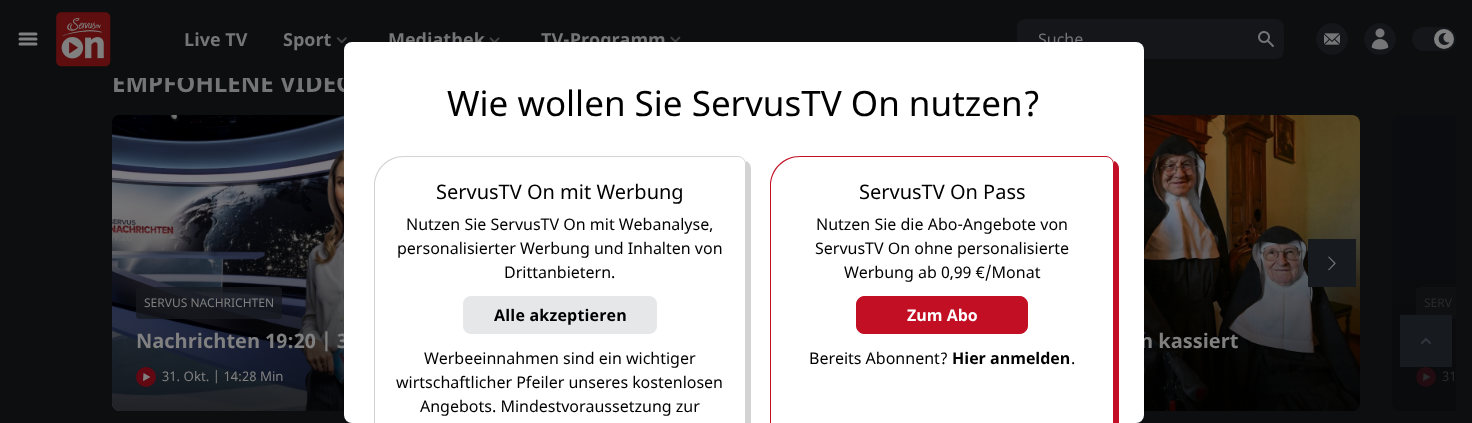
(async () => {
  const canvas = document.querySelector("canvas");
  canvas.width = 1472;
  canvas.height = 423;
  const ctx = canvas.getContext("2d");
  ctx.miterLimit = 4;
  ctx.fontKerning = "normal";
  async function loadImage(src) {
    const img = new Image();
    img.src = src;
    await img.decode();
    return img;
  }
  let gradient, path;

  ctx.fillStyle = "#0c0e10";
  ctx.fillRect(0, 0, 1472, 423);
  path = new Path2D("M20 34H36M20 39H36M20 44H36");
  ctx.strokeStyle = "#808080";
  ctx.lineWidth = 3;
  ctx.lineCap = "round";
  ctx.lineJoin = "round";
  ctx.stroke(path);
  ctx.drawImage(await loadImage("img/1.png"), 56, 12, 55, 55);
  ctx.drawImage(await loadImage("img/2.png"), 336, 37, 11, 7);
  ctx.drawImage(await loadImage("img/3.png"), 489, 37, 11, 5);
  ctx.drawImage(await loadImage("img/4.png"), 670, 36, 11, 6);
  ctx.fillStyle = "#14161a";
  ctx.beginPath();
  ctx.roundRect(1017, 19, 267, 40, 8);
  ctx.fill();
  ctx.drawImage(await loadImage("img/5.png"), 1258, 31, 16, 16);
  ctx.beginPath();
  ctx.arc(1332, 39, 16, 0, Math.PI * 2);
  ctx.fill();
  ctx.drawImage(await loadImage("img/6.png"), 1324, 33, 16, 12);
  ctx.beginPath();
  ctx.arc(1380, 39, 16, 0, Math.PI * 2);
  ctx.fill();
  ctx.drawImage(await loadImage("img/7.png"), 1371, 28, 18, 22);
  ctx.beginPath();
  ctx.roundRect(1412, 27, 44, 24, 12);
  ctx.fill();
  ctx.fillStyle = "#808080";
  ctx.beginPath();
  ctx.arc(1444, 39, 10, 0, Math.PI * 2);
  ctx.fill();
  ctx.drawImage(await loadImage("img/8.png"), 1438, 33, 12, 12);
  ctx.fillStyle = "#07080a";
  ctx.beginPath();
  ctx.roundRect(965, 115, 395, 296, 8);
  ctx.fill();
  ctx.drawImage(await loadImage("img/11.png"), 1144, 115, 216, 296);
  gradient = ctx.createLinearGradient(1163, 411, 1163, 115);
  gradient.addColorStop(0, "rgba(0, 0, 0, 0.7)");
  gradient.addColorStop(0.1, "rgba(0, 0, 0, 0.6)");
  gradient.addColorStop(0.7, "rgba(0, 0, 0, 0)");
  ctx.fillStyle = gradient;
  ctx.beginPath();
  ctx.roundRect(965, 115, 395, 296, 8);
  ctx.fill();
  ctx.fillStyle = "#171a1f";
  ctx.fillRect(1308, 239, 48, 48);
  ctx.drawImage(await loadImage("img/9.png"), 1328, 256, 8, 15);
  ctx.fillStyle = "#07080a";
  ctx.beginPath();
  ctx.roundRect(112, 115, 395, 296, 8);
  ctx.fill();
  ctx.drawImage(await loadImage("img/10.png"), 112, 115, 232, 296);
  gradient = ctx.createLinearGradient(310, 411, 310, 115);
  gradient.addColorStop(0, "rgba(0, 0, 0, 0.7)");
  gradient.addColorStop(0.1, "rgba(0, 0, 0, 0.6)");
  gradient.addColorStop(0.7, "rgba(0, 0, 0, 0)");
  ctx.fillStyle = gradient;
  ctx.beginPath();
  ctx.roundRect(112, 115, 395, 296, 8);
  ctx.fill();
  ctx.fillStyle = "rgba(23, 26, 31, 0.75)";
  ctx.beginPath();
  ctx.roundRect(136, 287, 146, 32, 4);
  ctx.fill();
  ctx.fillStyle = "#620813";
  ctx.beginPath();
  ctx.arc(146, 377, 10, 0, Math.PI * 2);
  ctx.fill();
  ctx.fillStyle = "#808080";
  path = new Path2D("M143.5 381L143 380.5L143.5 373L150.5 377Z");
  ctx.fill(path);
  gradient = ctx.createLinearGradient(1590, 411, 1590, 115);
  gradient.addColorStop(0, "#0a0b0d");
  gradient.addColorStop(0.1, "#0a0b0d");
  gradient.addColorStop(0.7, "#0b0c0f");
  ctx.fillStyle = gradient;
  ctx.beginPath();
  ctx.roundRect(1392, 115, 64, 296, [8, 0, 0, 8]);
  ctx.fill();
  ctx.fillStyle = "#0e1012";
  ctx.beginPath();
  ctx.roundRect(1416, 287, 40, 32, [4, 0, 0, 4]);
  ctx.fill();
  ctx.fillStyle = "#220c11";
  ctx.beginPath();
  ctx.arc(1426, 377, 10, 0, Math.PI * 2);
  ctx.fill();
  ctx.fillStyle = "#292a2c";
  path = new Path2D("M1423.5 381L1423 380.5L1423.5 373L1430.5 377Z");
  ctx.fill(path);
  ctx.fillStyle = "#171a1f";
  ctx.fillRect(1400, 315, 52, 52);
  ctx.drawImage(await loadImage("img/12.png"), 1421, 338, 10, 6);
  ctx.font = "bold 18px Noto Sans";
  ctx.fillStyle = "#757577";
  for (const [text, x, y] of [
    ["Live TV", 184, 46],
    ["Sport", 283, 46],
    ["Mediathek", 388, 46],
    ["TV-Programm", 541, 46],
  ]) {
    ctx.fillText(text, x, y);
  }
  ctx.font = "16px Noto Sans";
  ctx.fillText("Suche", 1038, 45);
  ctx.font = "bold 24px Noto Sans";
  ctx.fillText("EMPFOHLENE VIDEO", 112, 92);
  ctx.fillStyle = "#0c0e10";
  ctx.fillRect(114, 74, 239, 4);
  ctx.font = "12px Noto Sans";
  ctx.fillStyle = "#808080";
  ctx.fillText("SERVUS NACHRICHTEN", 144, 307);
  ctx.font = "bold 20px Noto Sans";
  ctx.fillText("Nachrichten 19:20 | 3", 136, 348);
  ctx.font = "13.25px Noto Sans";
  ctx.fillText("31. Okt. | 14:28 Min", 162, 381);
  ctx.font = "bold 20px Noto Sans";
  ctx.fillText("n kassiert", 1140, 348);
  ctx.font = "12px Noto Sans";
  ctx.fillStyle = "#292a2c";
  ctx.fillText("SERV", 1424, 307);
  ctx.font = "13.25px Noto Sans";
  ctx.fillText("31", 1442, 381);
  ctx.fillStyle = "#ffffff";
  ctx.beginPath();
  ctx.roundRect(344, 42, 800, 381, 8);
  ctx.fill();
  ctx.font = "35px Noto Sans";
  ctx.fillStyle = "#000000";
  ctx.fillText("Wie wollen Sie ServusTV On nutzen?", 447, 116);
  ctx.fillStyle = "#d3d3d3";
  path = new Path2D("M746 423H751V169C751 165 749 162 746 161V164Z");
  ctx.fill(path);
  path = new Path2D("M404 156C387 156 374 169 374 186V423H375V186C375 170 388 157 404 157H738C742 157 745 160 745 164V423H746V164C746 160 742 156 738 156Z");
  ctx.fill(path);
  ctx.font = "20px Noto Sans";
  ctx.fillStyle = "#000000";
  ctx.fillText("ServusTV On mit Werbung", 436, 199);
  ctx.font = "16px Noto Sans";
  for (const [text, x, y] of [
    ["Nutzen Sie ServusTV On mit Webanalyse,", 406, 230],
    ["personalisierter Werbung und Inhalten von", 397, 254],
    ["Drittanbietern.", 504, 278],
  ]) {
    ctx.fillText(text, x, y);
  }
  ctx.fillStyle = "#e6e7e9";
  ctx.beginPath();
  ctx.roundRect(463, 296, 194, 38, 8);
  ctx.fill();
  ctx.letterSpacing = "0.2px";
  ctx.font = "bold 16px Noto Sans";
  ctx.fillStyle = "#000000";
  ctx.fillText("Alle akzeptieren", 494, 321);
  ctx.letterSpacing = "0px";
  ctx.font = "16px Noto Sans";
  for (const [text, x, y] of [
    ["Werbeeinnahmen sind ein wichtiger", 424, 364],
    ["wirtschaftlicher Pfeiler unseres kostenlosen", 396, 388],
    ["Angebots. Mindestvoraussetzung zur", 420, 412],
  ]) {
    ctx.fillText(text, x, y);
  }
  ctx.fillStyle = "#c30f25";
  path = new Path2D("M1114 423H1119V169C1119 165 1117 162 1114 161V164Z");
  ctx.fill(path);
  path = new Path2D("M800 156C783 156 770 169 770 186V423H771V186C771 170 784 157 800 157H1106C1110 157 1113 160 1113 164V423H1114V164C1114 160 1110 156 1106 156Z");
  ctx.fill(path);
  ctx.font = "20px Noto Sans";
  ctx.fillStyle = "#000000";
  ctx.fillText("ServusTV On Pass", 859, 199);
  ctx.font = "16px Noto Sans";
  for (const [text, x, y] of [
    ["Nutzen Sie die Abo-Angebote von", 816, 230],
    ["ServusTV On ohne personalisierte", 815, 254],
    ["Werbung ab 0,99 €/Monat", 844, 278],
  ]) {
    ctx.fillText(text, x, y);
  }
  ctx.fillStyle = "#c30f24";
  ctx.beginPath();
  ctx.roundRect(856.5, 296.5, 171, 37, 7.5);
  ctx.fill();
  ctx.strokeStyle = "#c30f24";
  ctx.lineWidth = 1;
  ctx.lineJoin = "miter";
  ctx.stroke();
  ctx.font = "bold 16px Noto Sans";
  ctx.fillStyle = "#ffffff";
  ctx.fillText("Zum Abo", 907, 321);
  ctx.font = "16px Noto Sans";
  ctx.fillStyle = "#000000";
  ctx.fillText("Bereits Abonnent?", 809, 364);
  ctx.font = "bold 16px Noto Sans";
  ctx.fillText("Hier anmelden", 952, 364);
  ctx.font = "16px Noto Sans";
  ctx.fillText(".", 1071, 364);
})();
